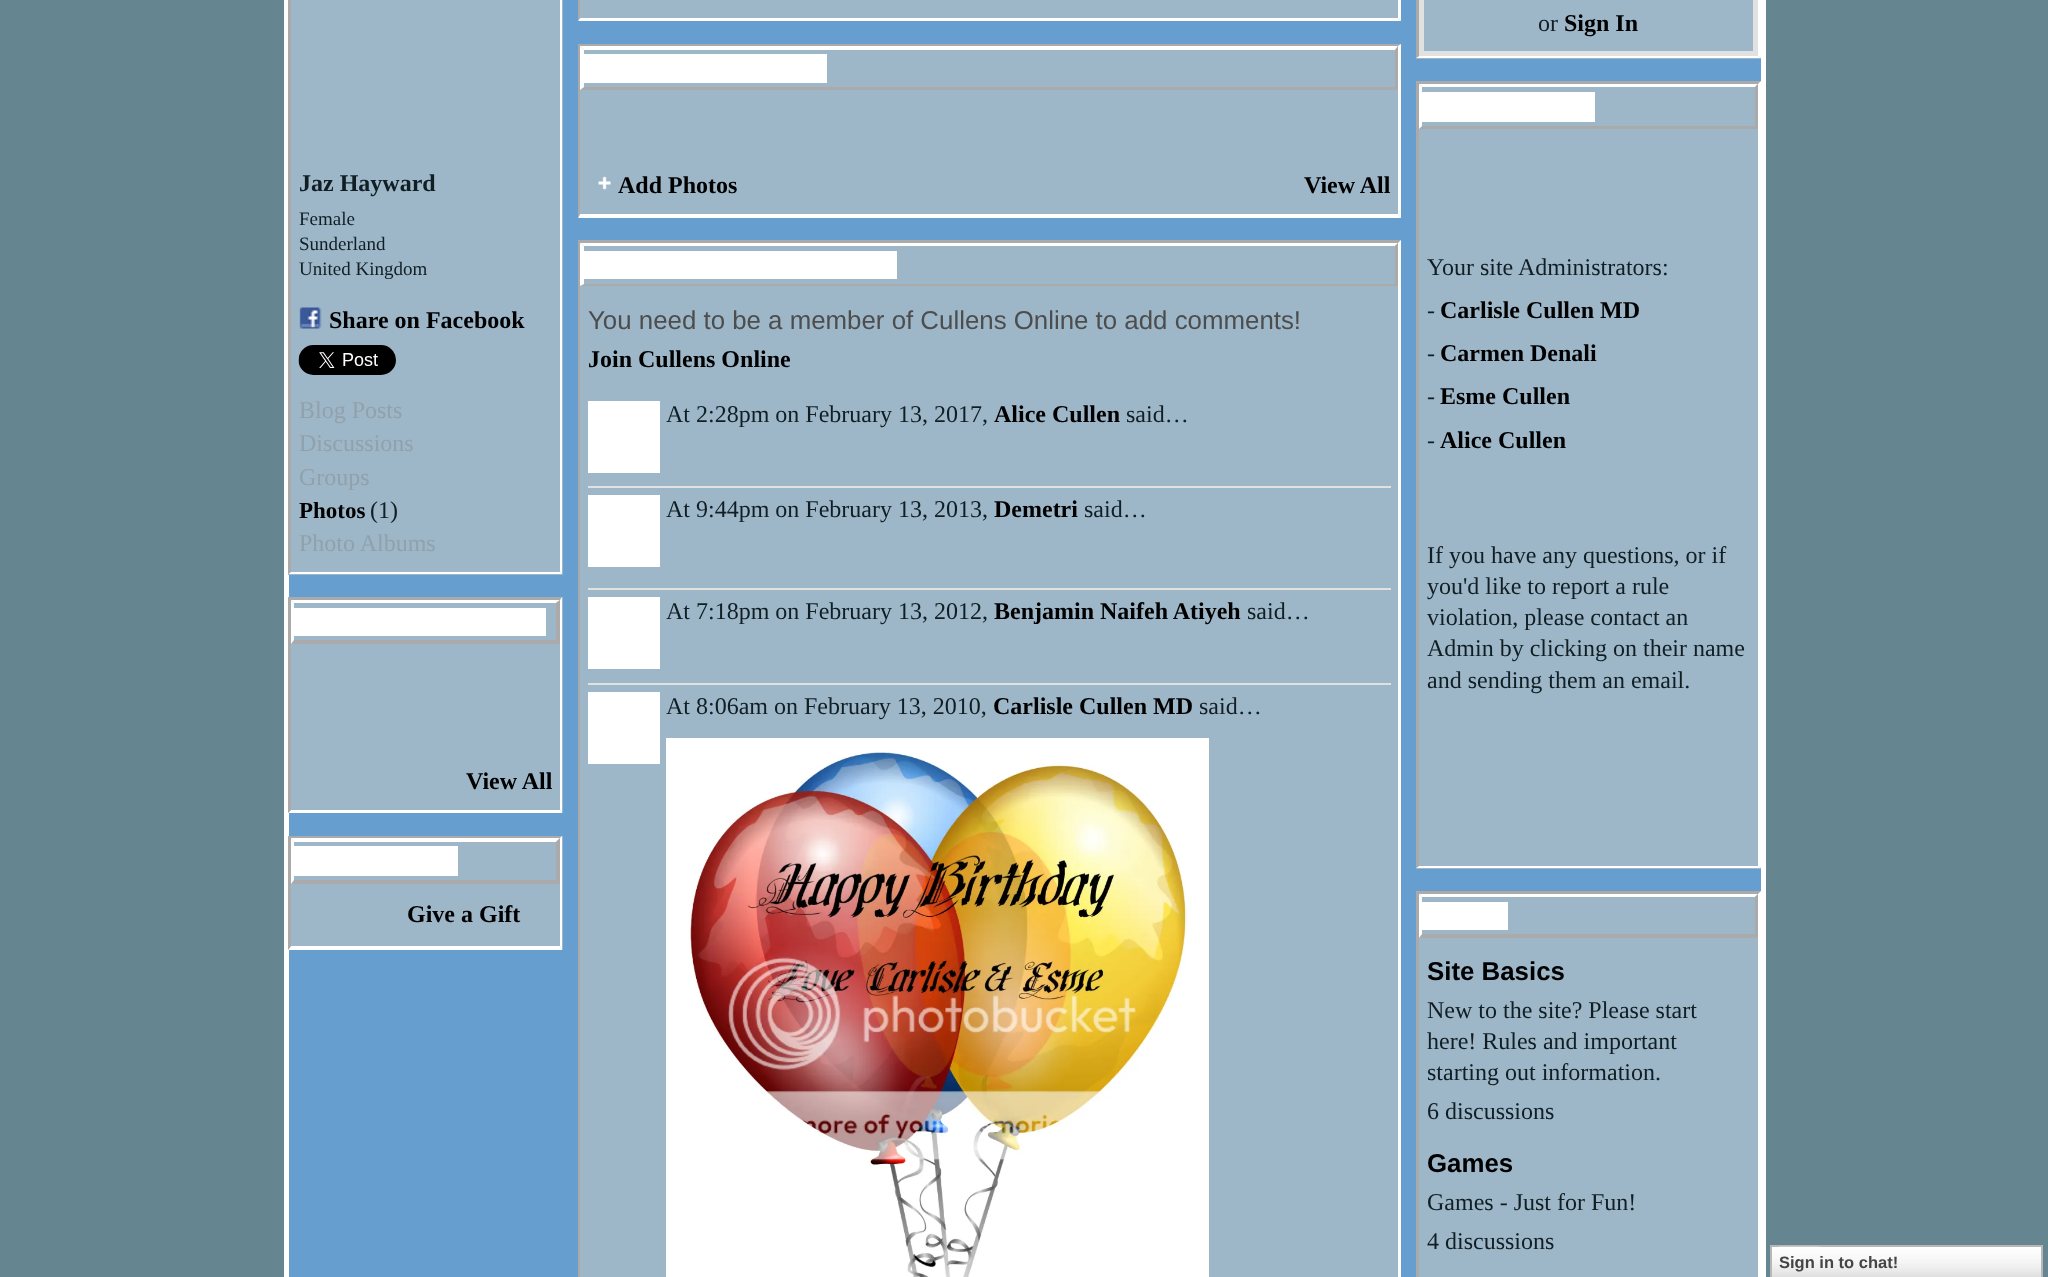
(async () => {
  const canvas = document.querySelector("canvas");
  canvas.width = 2048;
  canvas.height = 1277;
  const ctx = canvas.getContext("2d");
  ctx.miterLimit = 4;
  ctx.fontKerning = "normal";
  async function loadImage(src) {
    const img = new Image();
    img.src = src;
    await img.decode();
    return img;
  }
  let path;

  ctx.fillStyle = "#658591";
  ctx.fillRect(0, 0, 2048, 1277);
  ctx.fillStyle = "#659ecf";
  ctx.beginPath();
  ctx.rect(286.5, -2.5, 1477, 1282);
  ctx.fill();
  ctx.strokeStyle = "#ffffff";
  ctx.lineWidth = 5;
  ctx.stroke();
  ctx.fillStyle = "#9db7c9";
  ctx.fillRect(288, 0, 275, 575);
  ctx.fillStyle = "#ffffff";
  path = new Path2D("M562-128V574L560 572V-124Z");
  ctx.fill(path);
  path = new Path2D("M562 574H288L291 572H560Z");
  ctx.fill(path);
  ctx.fillStyle = "#aaaaaa";
  path = new Path2D("M288 574V-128L291-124V572Z");
  ctx.fill(path);
  ctx.drawImage(await loadImage("img/1.png"), 299, 307, 23, 22);
  ctx.drawImage(await loadImage("img/2.png"), 298, 345, 98, 30);
  ctx.fillStyle = "#9db7c9";
  ctx.fillRect(288, 597, 275, 216);
  ctx.fillStyle = "#aaaaaa";
  path = new Path2D("M288 597H562L560 600H291Z");
  ctx.fill(path);
  ctx.fillStyle = "#ffffff";
  path = new Path2D("M562 597V813L560 810V600Z");
  ctx.fill(path);
  path = new Path2D("M562 813H288L291 810H560Z");
  ctx.fill(path);
  ctx.fillStyle = "#aaaaaa";
  path = new Path2D("M288 813V597L291 600V810Z");
  ctx.fill(path);
  ctx.fillStyle = "#ffffff";
  path = new Path2D("M291 600H560L556 603H294Z");
  ctx.fill(path);
  ctx.fillStyle = "#aaaaaa";
  path = new Path2D("M560 600V644L556 640V603Z");
  ctx.fill(path);
  path = new Path2D("M560 644H291L294 640H556Z");
  ctx.fill(path);
  ctx.fillStyle = "#ffffff";
  path = new Path2D("M291 644V600L294 603V640Z");
  ctx.fill(path);
  ctx.fillRect(294, 608, 252, 28);
  ctx.fillStyle = "#9db7c9";
  ctx.fillRect(288, 836, 275, 114);
  ctx.fillStyle = "#aaaaaa";
  path = new Path2D("M288 836H562L560 838H291Z");
  ctx.fill(path);
  ctx.fillStyle = "#ffffff";
  path = new Path2D("M562 836V950L560 946V838Z");
  ctx.fill(path);
  path = new Path2D("M562 950H288L291 946H560Z");
  ctx.fill(path);
  ctx.fillStyle = "#aaaaaa";
  path = new Path2D("M288 950V836L291 838V946Z");
  ctx.fill(path);
  ctx.fillStyle = "#ffffff";
  path = new Path2D("M291 838H560L556 842H294Z");
  ctx.fill(path);
  ctx.fillStyle = "#aaaaaa";
  path = new Path2D("M560 838V884L556 880V842Z");
  ctx.fill(path);
  path = new Path2D("M560 884H291L294 880H556Z");
  ctx.fill(path);
  ctx.fillStyle = "#ffffff";
  path = new Path2D("M291 884V838L294 842V880Z");
  ctx.fill(path);
  ctx.fillRect(294, 846, 164, 30);
  ctx.fillStyle = "#9db7c9";
  ctx.fillRect(578, 0, 823, 21);
  ctx.fillStyle = "#ffffff";
  path = new Path2D("M1401-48V21L1398 18V-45Z");
  ctx.fill(path);
  path = new Path2D("M1401 21H578L580 18H1398Z");
  ctx.fill(path);
  ctx.fillStyle = "#aaaaaa";
  path = new Path2D("M578 21V-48L580-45V18Z");
  ctx.fill(path);
  ctx.fillStyle = "#9db7c9";
  ctx.fillRect(578, 44, 823, 174);
  ctx.fillStyle = "#aaaaaa";
  path = new Path2D("M578 44H1401L1398 46H580Z");
  ctx.fill(path);
  ctx.fillStyle = "#ffffff";
  path = new Path2D("M1401 44V218L1398 214V46Z");
  ctx.fill(path);
  path = new Path2D("M1401 218H578L580 214H1398Z");
  ctx.fill(path);
  ctx.fillStyle = "#aaaaaa";
  path = new Path2D("M578 218V44L580 46V214Z");
  ctx.fill(path);
  ctx.fillStyle = "#ffffff";
  path = new Path2D("M580 46H1398L1395 50H584Z");
  ctx.fill(path);
  ctx.fillStyle = "#aaaaaa";
  path = new Path2D("M1398 46V90L1395 87V50Z");
  ctx.fill(path);
  path = new Path2D("M1398 90H580L584 87H1395Z");
  ctx.fill(path);
  ctx.fillStyle = "#ffffff";
  path = new Path2D("M580 90V46L584 50V87Z");
  ctx.fill(path);
  ctx.fillRect(584, 54, 243, 29);
  ctx.drawImage(await loadImage("img/3.png"), 598, 176, 13, 14);
  ctx.fillStyle = "#9db7c9";
  ctx.fillRect(578, 240, 823, 1037);
  ctx.fillStyle = "#aaaaaa";
  path = new Path2D("M578 240H1401L1398 243H580Z");
  ctx.fill(path);
  ctx.fillStyle = "#ffffff";
  path = new Path2D("M1401 240V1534L1398 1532V243Z");
  ctx.fill(path);
  ctx.fillStyle = "#aaaaaa";
  path = new Path2D("M578 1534V240L580 243V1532Z");
  ctx.fill(path);
  ctx.fillStyle = "#ffffff";
  path = new Path2D("M580 243H1398L1395 246H584Z");
  ctx.fill(path);
  ctx.fillStyle = "#aaaaaa";
  path = new Path2D("M1398 243V286L1395 284V246Z");
  ctx.fill(path);
  path = new Path2D("M1398 286H580L584 284H1395Z");
  ctx.fill(path);
  ctx.fillStyle = "#ffffff";
  path = new Path2D("M580 286V243L584 246V284Z");
  ctx.fill(path);
  for (const [x, y, w, h, color] of [
    [584, 251, 313, 28, "#ffffff"],
    [588, 486, 803, 2, "#e1e1e1"],
    [588, 401, 72, 72, "#ffffff"],
    [588, 588, 803, 2, "#e1e1e1"],
    [588, 495, 72, 72, "#ffffff"],
    [588, 683, 803, 2, "#e1e1e1"],
    [588, 597, 72, 72, "#ffffff"],
    [588, 692, 72, 72, "#ffffff"],
  ]) {
    ctx.fillStyle = color;
    ctx.fillRect(x, y, w, h);
  }
  ctx.drawImage(await loadImage("img/4.png"), 666, 738, 543, 539);
  ctx.fillStyle = "#9db7c9";
  ctx.fillRect(1416, 0, 345, 59);
  ctx.fillStyle = "#ffffff";
  path = new Path2D("M1761-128V58L1758 56V-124Z");
  ctx.fill(path);
  path = new Path2D("M1761 58H1416L1419 56H1758Z");
  ctx.fill(path);
  ctx.fillStyle = "#aaaaaa";
  path = new Path2D("M1416 58V-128L1419-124V56Z");
  ctx.fill(path);
  ctx.strokeStyle = "#e1e1e1";
  ctx.strokeRect(1421.5, -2.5, 334, 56);
  ctx.fillStyle = "#9db7c9";
  ctx.fillRect(1416, 81, 345, 788);
  ctx.fillStyle = "#aaaaaa";
  path = new Path2D("M1416 81H1761L1758 84H1419Z");
  ctx.fill(path);
  ctx.fillStyle = "#ffffff";
  path = new Path2D("M1761 81V868L1758 866V84Z");
  ctx.fill(path);
  path = new Path2D("M1761 868H1416L1419 866H1758Z");
  ctx.fill(path);
  ctx.fillStyle = "#aaaaaa";
  path = new Path2D("M1416 868V81L1419 84V866Z");
  ctx.fill(path);
  ctx.fillStyle = "#ffffff";
  path = new Path2D("M1419 84H1758L1755 87H1422Z");
  ctx.fill(path);
  ctx.fillStyle = "#aaaaaa";
  path = new Path2D("M1758 84V129L1755 126V87Z");
  ctx.fill(path);
  path = new Path2D("M1758 129H1419L1422 126H1755Z");
  ctx.fill(path);
  ctx.fillStyle = "#ffffff";
  path = new Path2D("M1419 129V84L1422 87V126Z");
  ctx.fill(path);
  ctx.fillRect(1422, 92, 173, 30);
  ctx.fillStyle = "#9db7c9";
  ctx.fillRect(1416, 891, 345, 386);
  ctx.fillStyle = "#aaaaaa";
  path = new Path2D("M1416 891H1761L1758 894H1419Z");
  ctx.fill(path);
  ctx.fillStyle = "#ffffff";
  path = new Path2D("M1761 891V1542L1758 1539V894Z");
  ctx.fill(path);
  ctx.fillStyle = "#aaaaaa";
  path = new Path2D("M1416 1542V891L1419 894V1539Z");
  ctx.fill(path);
  ctx.fillStyle = "#ffffff";
  path = new Path2D("M1419 894H1758L1755 897H1422Z");
  ctx.fill(path);
  ctx.fillStyle = "#aaaaaa";
  path = new Path2D("M1758 894V938L1755 934V897Z");
  ctx.fill(path);
  path = new Path2D("M1758 938H1419L1422 934H1755Z");
  ctx.fill(path);
  ctx.fillStyle = "#ffffff";
  path = new Path2D("M1419 938V894L1422 897V934Z");
  ctx.fill(path);
  ctx.fillRect(1422, 902, 86, 28);
  ctx.drawImage(await loadImage("img/5.png"), 1772, 1247, 269, 30);
  ctx.strokeStyle = "#b7b7b7";
  ctx.lineWidth = 2;
  ctx.strokeRect(1771, 1246, 271, 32);
  ctx.drawImage(await loadImage("img/6.png"), 1779, 1246, 41, 1);
  ctx.font = "bold 24px Liberation Serif";
  ctx.fillStyle = "#111f24";
  ctx.fillText("Jaz Hayward", 299, 191);
  ctx.font = "19px Liberation Serif";
  for (const [text, x, y] of [
    ["Female", 299, 225],
    ["Sunderland", 299, 250],
    ["United Kingdom", 299, 275],
  ]) {
    ctx.fillText(text, x, y);
  }
  ctx.font = "bold 24px Liberation Serif";
  ctx.fillStyle = "#000000";
  ctx.fillText("Share on Facebook", 329, 328);
  ctx.font = "24px Liberation Serif";
  ctx.fillStyle = "#91a1ab";
  for (const [text, x, y] of [
    ["Blog Posts", 299, 418],
    ["Discussions", 299, 451],
    ["Groups", 299, 485],
  ]) {
    ctx.fillText(text, x, y);
  }
  ctx.font = "bold 23px Liberation Serif";
  ctx.fillStyle = "#000000";
  ctx.fillText("Photos", 299, 518);
  ctx.font = "24px Liberation Serif";
  ctx.fillStyle = "#111f24";
  ctx.fillText("(1)", 370, 518);
  ctx.fillStyle = "#91a1ab";
  ctx.fillText("Photo Albums", 299, 551);
  ctx.font = "bold 24px Liberation Serif";
  ctx.fillStyle = "#000000";
  for (const [text, x, y] of [
    ["View All", 466, 789],
    ["Give a Gift", 407, 922],
    ["Add Photos", 618, 193],
    ["View All", 1304, 193],
  ]) {
    ctx.fillText(text, x, y);
  }
  ctx.font = "25.85px Liberation Sans";
  ctx.fillStyle = "#4d4d4d";
  ctx.fillText("You need to be a member of Cullens Online to add comments!", 588, 329);
  ctx.font = "bold 24px Liberation Serif";
  ctx.fillStyle = "#000000";
  ctx.fillText("Join Cullens Online", 588, 367);
  ctx.font = "24px Liberation Serif";
  ctx.fillStyle = "#111f24";
  ctx.fillText("At 2:28pm on February 13, 2017,", 666, 422);
  ctx.font = "bold 24px Liberation Serif";
  ctx.fillStyle = "#000000";
  ctx.fillText("Alice Cullen", 994, 422);
  ctx.font = "24px Liberation Serif";
  ctx.fillStyle = "#111f24";
  ctx.fillText("said…", 1126, 422);
  ctx.fillText("At 9:44pm on February 13, 2013,", 666, 517);
  ctx.font = "bold 24px Liberation Serif";
  ctx.fillStyle = "#000000";
  ctx.fillText("Demetri", 994, 517);
  ctx.font = "24px Liberation Serif";
  ctx.fillStyle = "#111f24";
  ctx.fillText("said…", 1084, 517);
  ctx.fillText("At 7:18pm on February 13, 2012,", 666, 619);
  ctx.font = "bold 24px Liberation Serif";
  ctx.fillStyle = "#000000";
  ctx.fillText("Benjamin Naifeh Atiyeh", 994, 619);
  ctx.font = "24px Liberation Serif";
  ctx.fillStyle = "#111f24";
  ctx.fillText("said…", 1247, 619);
  ctx.fillText("At 8:06am on February 13, 2010,", 666, 714);
  ctx.font = "bold 24px Liberation Serif";
  ctx.fillStyle = "#000000";
  ctx.fillText("Carlisle Cullen MD", 993, 714);
  ctx.font = "24px Liberation Serif";
  ctx.fillStyle = "#111f24";
  ctx.fillText("said…", 1199, 714);
  ctx.fillText("or", 1538, 31);
  ctx.font = "bold 24px Liberation Serif";
  ctx.fillStyle = "#000000";
  ctx.fillText("Sign In", 1564, 31);
  ctx.font = "24px Liberation Serif";
  ctx.fillStyle = "#111f24";
  ctx.fillText("Your site Administrators:", 1427, 275);
  ctx.fillText("-", 1427, 318);
  ctx.font = "bold 24px Liberation Serif";
  ctx.fillStyle = "#000000";
  ctx.fillText("Carlisle Cullen MD", 1440, 318);
  ctx.font = "24px Liberation Serif";
  ctx.fillStyle = "#111f24";
  ctx.fillText("-", 1427, 361);
  ctx.font = "bold 24px Liberation Serif";
  ctx.fillStyle = "#000000";
  ctx.fillText("Carmen Denali", 1440, 361);
  ctx.font = "24px Liberation Serif";
  ctx.fillStyle = "#111f24";
  ctx.fillText("-", 1427, 404);
  ctx.font = "bold 24px Liberation Serif";
  ctx.fillStyle = "#000000";
  ctx.fillText("Esme Cullen", 1440, 404);
  ctx.font = "24px Liberation Serif";
  ctx.fillStyle = "#111f24";
  ctx.fillText("-", 1427, 448);
  ctx.font = "bold 24px Liberation Serif";
  ctx.fillStyle = "#000000";
  ctx.fillText("Alice Cullen", 1440, 448);
  ctx.font = "24px Liberation Serif";
  ctx.fillStyle = "#111f24";
  for (const [text, x, y] of [
    ["If you have any questions, or if", 1427, 563],
    ["you'd like to report a rule", 1427, 594],
    ["violation, please contact an", 1427, 625],
    ["Admin by clicking on their name", 1427, 656],
    ["and sending them an email.", 1427, 688],
  ]) {
    ctx.fillText(text, x, y);
  }
  ctx.font = "bold 25.85px Liberation Sans";
  ctx.fillStyle = "#000000";
  ctx.fillText("Site Basics", 1427, 980);
  ctx.font = "24px Liberation Serif";
  ctx.fillStyle = "#111f24";
  for (const [text, x, y] of [
    ["New to the site? Please start", 1427, 1018],
    ["here! Rules and important", 1427, 1049],
    ["starting out information.", 1427, 1080],
    ["6 discussions", 1427, 1119],
  ]) {
    ctx.fillText(text, x, y);
  }
  ctx.font = "bold 25.85px Liberation Sans";
  ctx.fillStyle = "#000000";
  ctx.fillText("Games", 1427, 1172);
  ctx.font = "24px Liberation Serif";
  ctx.fillStyle = "#111f24";
  ctx.fillText("Games - Just for Fun!", 1427, 1210);
  ctx.fillText("4 discussions", 1427, 1249);
  ctx.font = "bold 16.5px Liberation Sans";
  ctx.fillStyle = "#454545";
  ctx.fillText("Sign in to chat!", 1779, 1268);
})();
